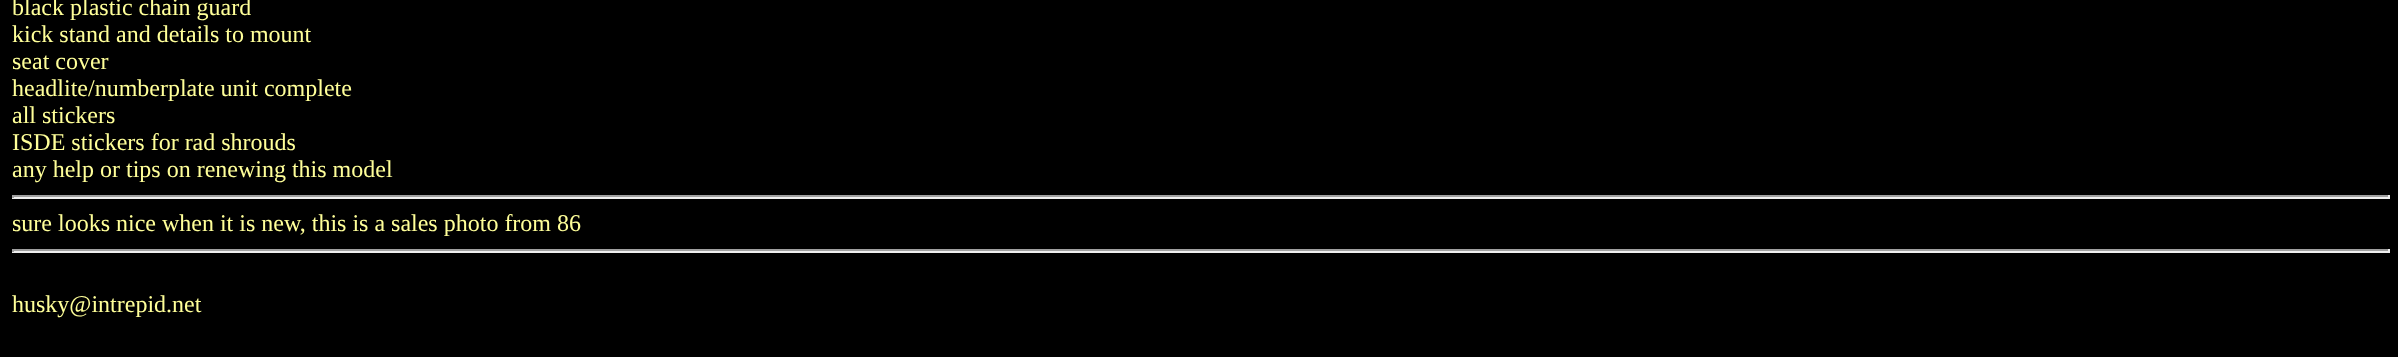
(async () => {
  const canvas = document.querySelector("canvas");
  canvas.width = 2398;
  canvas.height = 357;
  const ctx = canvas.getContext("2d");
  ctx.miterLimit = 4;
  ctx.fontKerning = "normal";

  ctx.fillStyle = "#000000";
  ctx.fillRect(0, 0, 2398, 357);
  for (const [x, y, w, h, color] of [
    [12, 195, 2378, 2, "#9f9f9f"],
    [2388, 195, 2, 3, "#eeeeee"],
    [12, 197, 2378, 2, "#eeeeee"],
    [12, 195, 2, 3, "#9f9f9f"],
    [12, 249, 2378, 2, "#9f9f9f"],
    [2388, 249, 2, 3, "#eeeeee"],
    [12, 251, 2378, 2, "#eeeeee"],
    [12, 249, 2, 3, "#9f9f9f"],
  ]) {
    ctx.fillStyle = color;
    ctx.fillRect(x, y, w, h);
  }
  ctx.font = "24px Liberation Serif";
  ctx.fillStyle = "#ffff99";
  for (const [text, x, y] of [
    ["black plastic chain guard", 12, 15],
    ["kick stand and details to mount", 12, 42],
    ["seat cover", 12, 69],
    ["headlite/numberplate unit complete", 12, 96],
    ["all stickers", 12, 123],
    ["ISDE stickers for rad shrouds", 12, 150],
    ["any help or tips on renewing this model", 12, 177],
    ["sure looks nice when it is new, this is a sales photo from 86", 12, 231],
    ["husky@intrepid.net", 12, 312],
  ]) {
    ctx.fillText(text, x, y);
  }
})();
